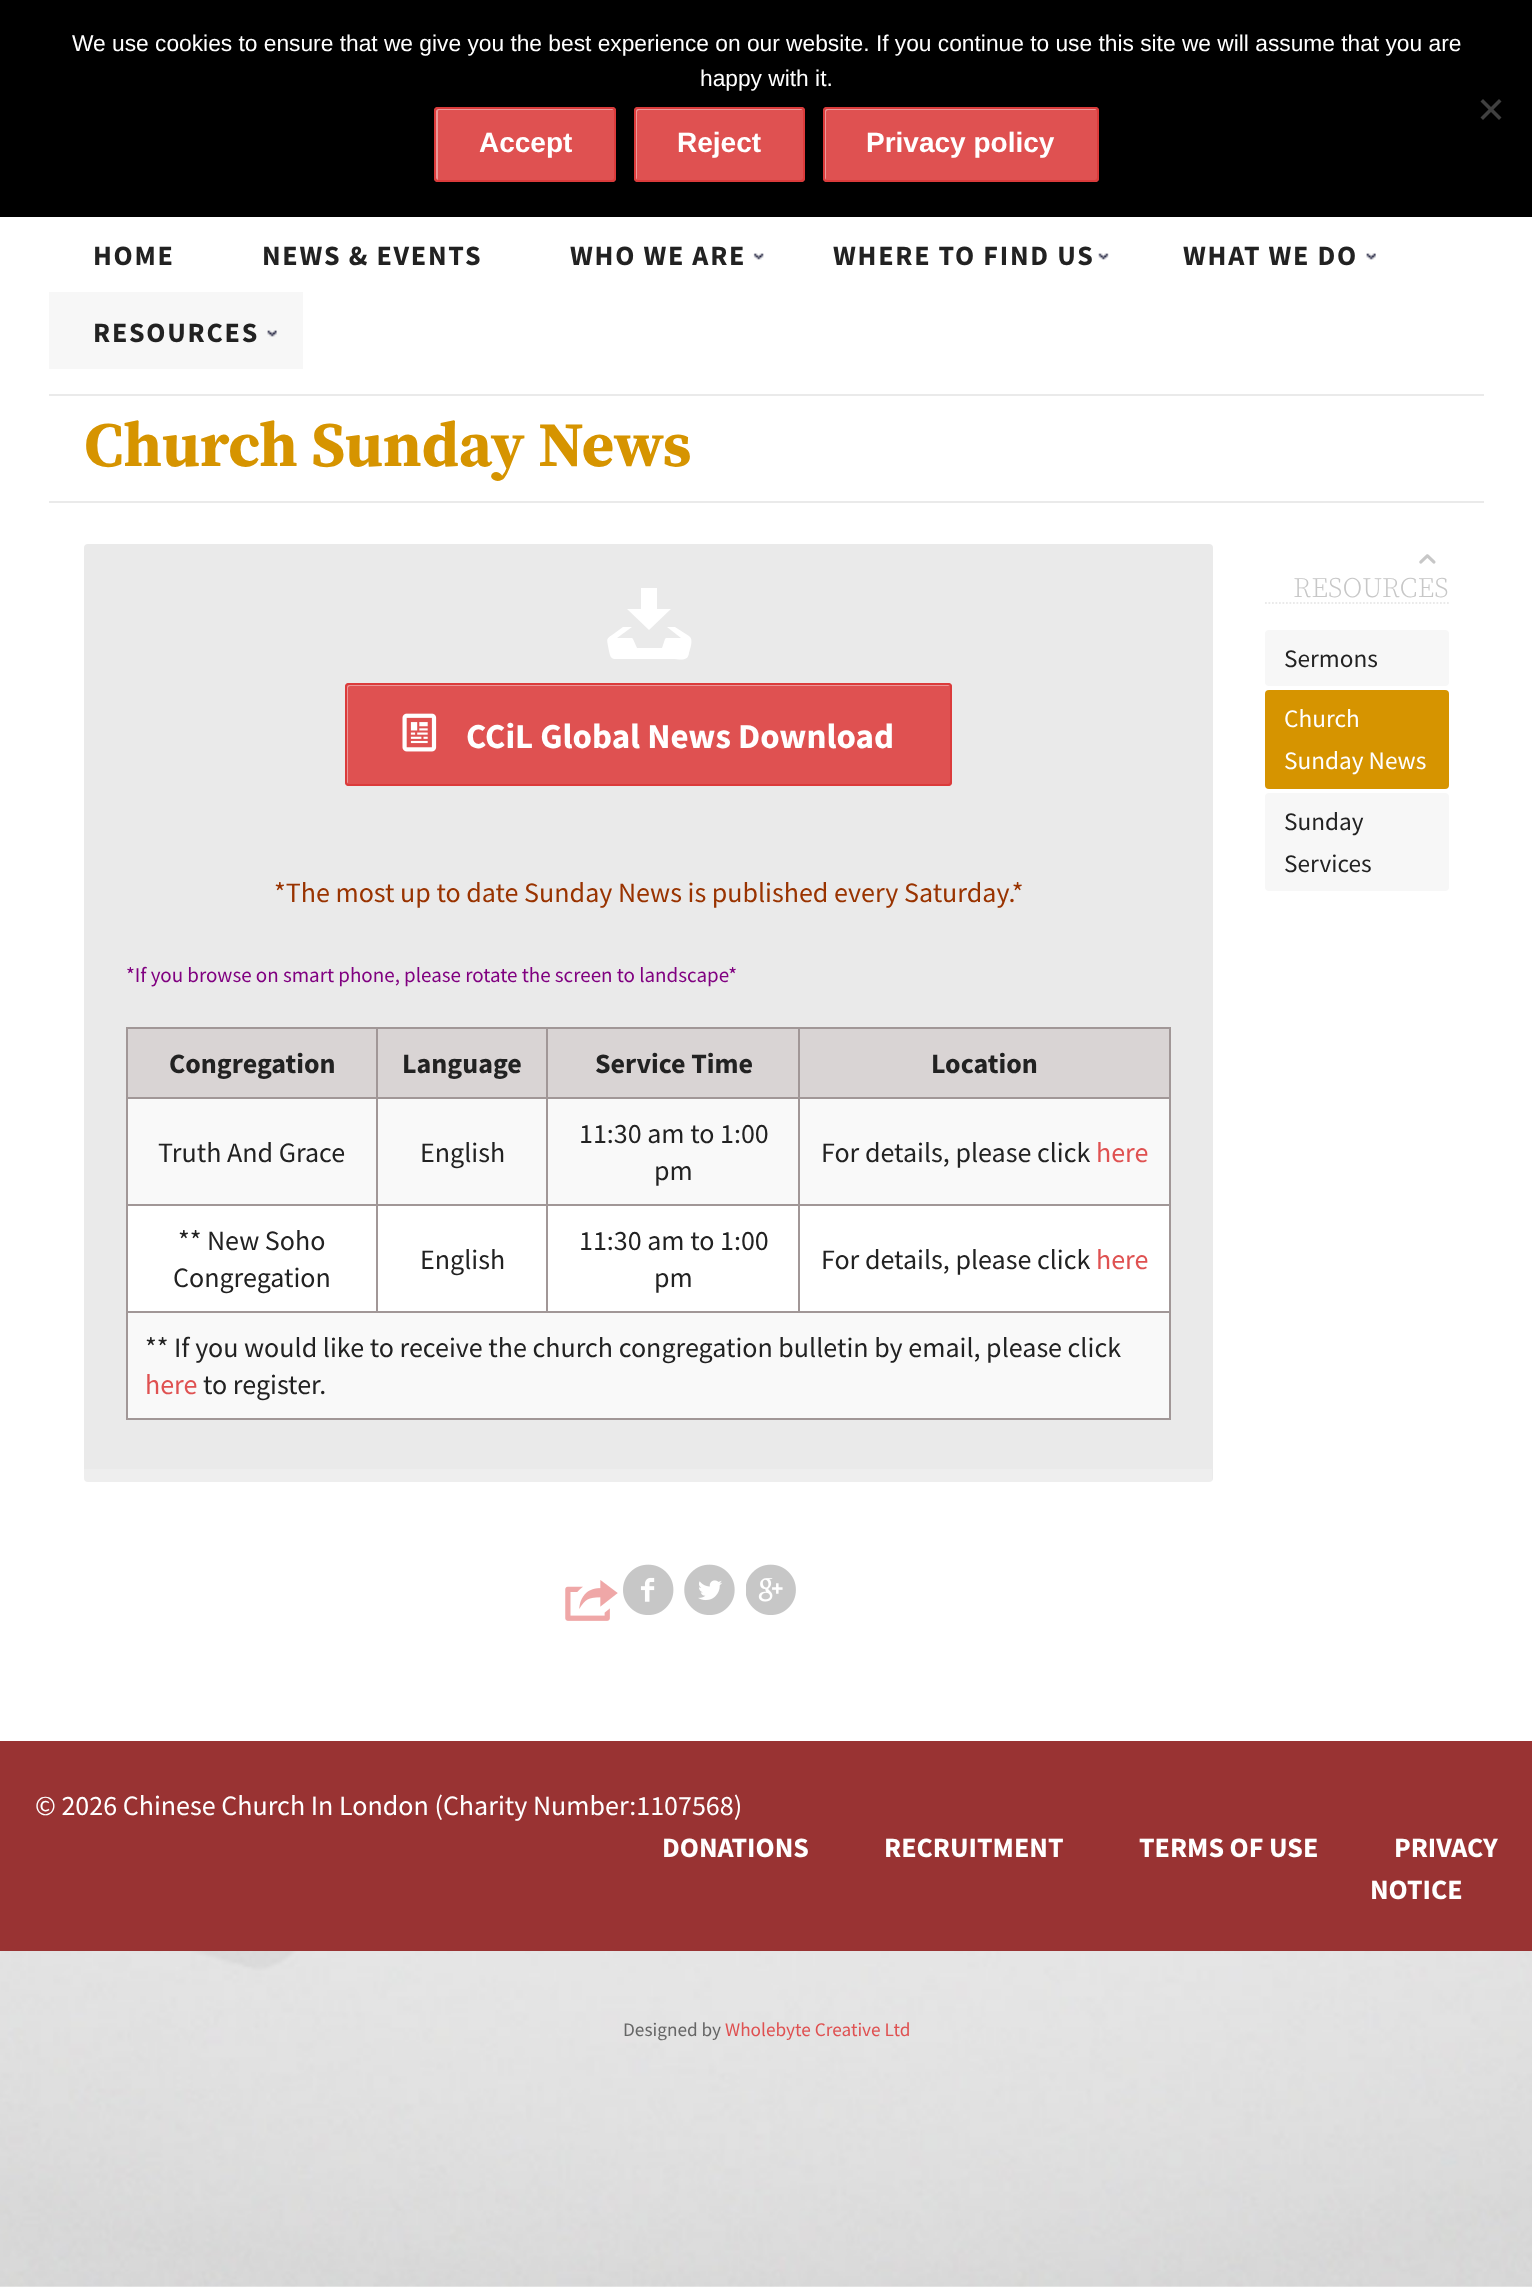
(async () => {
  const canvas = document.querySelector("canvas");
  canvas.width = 1532;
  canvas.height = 2287;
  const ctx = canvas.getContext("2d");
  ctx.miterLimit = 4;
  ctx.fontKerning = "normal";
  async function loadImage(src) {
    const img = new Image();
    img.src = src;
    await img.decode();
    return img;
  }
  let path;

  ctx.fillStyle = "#ffffff";
  ctx.fillRect(0, 0, 1532, 2287);
  ctx.fillStyle = "#000000";
  ctx.fillRect(0, 0, 1532, 217);
  ctx.fillStyle = "#404040";
  path = new Path2D("M1499 99L1501.5 101.5L1483 120L1480.5 117.5Z");
  ctx.fill(path);
  path = new Path2D("M1480.5 101.5L1483 99L1501.5 117.5L1499 120Z");
  ctx.fill(path);
  ctx.fillStyle = "#df5151";
  ctx.beginPath();
  ctx.roundRect(434, 107, 182, 75, 4);
  ctx.fill();
  ctx.fillStyle = "#ec9797";
  path = new Path2D("M439 110H614C613 109 613 109 612 109H438C437 109 436 110 436 111V178C436 179 437 180 438 180V112C438 111 438 110 439 110Z");
  ctx.fill(path);
  ctx.beginPath();
  ctx.roundRect(435, 108, 180, 73, 3);
  ctx.strokeStyle = "#db3b3b";
  ctx.lineWidth = 2;
  ctx.stroke();
  ctx.fillStyle = "#df5151";
  ctx.beginPath();
  ctx.roundRect(634, 107, 171, 75, 4);
  ctx.fill();
  ctx.fillStyle = "#ec9797";
  path = new Path2D("M639 110H803C802 109 802 109 801 109H637C636 109 635 110 635 111V178C635 179 636 180 637 180V112C637 111 638 110 639 110Z");
  ctx.fill(path);
  ctx.beginPath();
  ctx.roundRect(635, 108, 169, 73, 3);
  ctx.stroke();
  ctx.fillStyle = "#df5151";
  ctx.beginPath();
  ctx.roundRect(823, 107, 276, 75, 4);
  ctx.fill();
  ctx.fillStyle = "#ec9797";
  path = new Path2D("M828 110H1097C1096 109 1096 109 1095 109H826C825 109 824 110 824 111V178C824 179 825 180 826 180V112C826 111 827 110 828 110Z");
  ctx.fill(path);
  ctx.beginPath();
  ctx.roundRect(824, 108, 274, 73, 3);
  ctx.stroke();
  ctx.drawImage(await loadImage("img/1.png"), 753, 253, 11, 7);
  ctx.drawImage(await loadImage("img/2.png"), 1098, 253, 11, 7);
  ctx.drawImage(await loadImage("img/3.png"), 1366, 253, 10, 7);
  ctx.fillStyle = "#f7f7f7";
  ctx.fillRect(49, 292, 254, 77);
  ctx.drawImage(await loadImage("img/4.png"), 267, 330, 10, 7);
  ctx.fillStyle = "#eaeaea";
  ctx.fillRect(49, 394, 1435, 2);
  ctx.fillRect(49, 501, 1435, 2);
  ctx.beginPath();
  ctx.roundRect(84, 544, 1129, 938, 4);
  ctx.fill();
  ctx.fillStyle = "rgba(255, 255, 255, 0.2)";
  ctx.fillRect(84, 1469, 1128, 13);
  ctx.fillStyle = "#ffffff";
  path = new Path2D("M689 636C694 639 690 649 689 653C688 662 680 659 672 659H626C610 659 611 661 608 646C607 639 606 639 612 635L623 627H632L617 638H632L633 639L637 648H662L665 639L666 638H681L667 627H675ZM671 609L649 630L627 609H641V588H657V609Z");
  ctx.fill(path);
  ctx.fillStyle = "#df5151";
  ctx.beginPath();
  ctx.roundRect(345, 683, 607, 103, 4);
  ctx.fill();
  ctx.fillStyle = "#ec9797";
  path = new Path2D("M350 686H950C950 685 949 684 948 684H349C348 684 347 685 347 686V782C347 783 347 783 348 784V688C348 687 349 686 350 686Z");
  ctx.fill(path);
  ctx.beginPath();
  ctx.roundRect(346, 684, 605, 101, 3);
  ctx.stroke();
  ctx.drawImage(await loadImage("img/5.png"), 402, 713, 35, 39);
  for (const [x, y, w, h, color] of [
    [128, 1206, 1041, 105, "#ffffff"],
    [126, 1027, 1045, 2, "#a19797"],
    [1169, 1027, 2, 392, "#a19797"],
    [126, 1418, 1045, 2, "#a19797"],
    [126, 1027, 2, 392, "#a19797"],
    [128, 1029, 248, 68, "#d9d4d4"],
    [378, 1029, 168, 68, "#d9d4d4"],
    [798, 1097, 373, 2, "#a19797"],
    [128, 1099, 1041, 105, "#f9f9f9"],
    [798, 1204, 373, 2, "#a19797"],
    [126, 1311, 1045, 2, "#a19797"],
    [798, 1204, 2, 109, "#a19797"],
    [546, 1204, 254, 2, "#a19797"],
    [798, 1097, 2, 109, "#a19797"],
    [546, 1097, 254, 2, "#a19797"],
    [546, 1204, 2, 109, "#a19797"],
    [376, 1204, 172, 2, "#a19797"],
    [546, 1097, 2, 109, "#a19797"],
    [376, 1097, 172, 2, "#a19797"],
    [376, 1204, 2, 109, "#a19797"],
    [126, 1204, 252, 2, "#a19797"],
    [376, 1097, 2, 109, "#a19797"],
    [126, 1097, 252, 2, "#a19797"],
    [376, 1027, 2, 72, "#a19797"],
    [548, 1029, 250, 68, "#d9d4d4"],
    [546, 1027, 2, 72, "#a19797"],
    [800, 1029, 369, 68, "#d9d4d4"],
    [798, 1027, 2, 72, "#a19797"],
    [128, 1313, 1041, 105, "#f9f9f9"],
  ]) {
    ctx.fillStyle = color;
    ctx.fillRect(x, y, w, h);
  }
  ctx.drawImage(await loadImage("img/6.png"), 565, 1580, 53, 41);
  ctx.drawImage(await loadImage("img/7.png"), 623, 1564, 51, 51);
  ctx.drawImage(await loadImage("img/8.png"), 684, 1564, 51, 51);
  ctx.drawImage(await loadImage("img/9.png"), 746, 1564, 50, 51);
  path = new Path2D("M1265 603H1449");
  ctx.strokeStyle = "#eaeaea";
  ctx.lineWidth = 1.8;
  ctx.setLineDash([1.75, 1.75]);
  ctx.stroke(path);
  ctx.drawImage(await loadImage("img/10.png"), 1419, 554, 17, 10);
  ctx.fillStyle = "#f7f7f7";
  ctx.beginPath();
  ctx.roundRect(1265, 630, 184, 56, 4);
  ctx.fill();
  ctx.fillStyle = "#d69400";
  ctx.beginPath();
  ctx.roundRect(1265, 690, 184, 99, 4);
  ctx.fill();
  ctx.fillStyle = "#f7f7f7";
  ctx.beginPath();
  ctx.roundRect(1265, 793, 184, 98, 4);
  ctx.fill();
  ctx.fillStyle = "#993333";
  ctx.fillRect(0, 1741, 1532, 210);
  ctx.drawImage(await loadImage("img/11.png"), 0, 1951, 1532, 336);
  ctx.font = "22.75px Liberation Sans";
  ctx.fillStyle = "#ffffff";
  ctx.fillText("We use cookies to ensure that we give you the best experience on our website. If you continue to use this site we will assume that you are", 72, 51);
  ctx.fillText("happy with it.", 700, 86);
  ctx.font = "bold 28px Liberation Sans";
  for (const [text, x, y] of [
    ["Accept", 479, 152],
    ["Reject", 677, 152],
    ["Privacy policy", 866, 152],
  ]) {
    ctx.fillText(text, x, y);
  }
  ctx.letterSpacing = "1.75px";
  ctx.font = "bold 28px Source Sans Pro";
  ctx.fillStyle = "#222222";
  for (const [text, x, y] of [
    ["HOME", 93, 265],
    ["NEWS & EVENTS", 262, 265],
    ["WHO WE ARE", 570, 265],
    ["WHERE TO FIND US", 833, 265],
    ["WHAT WE DO", 1183, 265],
    ["RESOURCES", 93, 342],
  ]) {
    ctx.fillText(text, x, y);
  }
  ctx.letterSpacing = "0px";
  ctx.font = "bold 63px Source Serif Pro";
  ctx.fillStyle = "#d69400";
  ctx.fillText("Church Sunday News", 84, 466);
  ctx.font = "bold 35px Source Sans Pro";
  ctx.fillStyle = "#ffffff";
  ctx.fillText("CCiL Global News Download", 466, 748);
  ctx.font = "28px Source Sans Pro";
  ctx.fillStyle = "#993300";
  ctx.fillText("*The most up to date Sunday News is published every Saturday.*", 274, 902);
  ctx.font = "21px Source Sans Pro";
  ctx.fillStyle = "#800080";
  ctx.fillText("*If you browse on smart phone, please rotate the screen to landscape*", 126, 982);
  ctx.font = "bold 28px Source Sans Pro";
  ctx.fillStyle = "#222222";
  for (const [text, x, y] of [
    ["Congregation", 169, 1073],
    ["Language", 402, 1073],
    ["Service Time", 595, 1073],
    ["Location", 931, 1073],
  ]) {
    ctx.fillText(text, x, y);
  }
  ctx.font = "28px Source Sans Pro";
  for (const [text, x, y] of [
    ["Truth And Grace", 158, 1162],
    ["English", 420, 1162],
    ["11:30 am to 1:00", 579, 1143],
    ["pm", 654, 1180],
    ["For details, please click", 821, 1162],
  ]) {
    ctx.fillText(text, x, y);
  }
  ctx.fillStyle = "#df5151";
  ctx.fillText("here", 1096, 1162);
  ctx.fillStyle = "#222222";
  for (const [text, x, y] of [
    ["** New Soho", 178, 1250],
    ["Congregation", 173, 1287],
    ["English", 420, 1269],
    ["11:30 am to 1:00", 579, 1250],
    ["pm", 654, 1287],
    ["For details, please click", 821, 1269],
  ]) {
    ctx.fillText(text, x, y);
  }
  ctx.fillStyle = "#df5151";
  ctx.fillText("here", 1096, 1269);
  ctx.fillStyle = "#222222";
  ctx.fillText("** If you would like to receive the church congregation bulletin by email, please click", 145, 1357);
  ctx.fillStyle = "#df5151";
  ctx.fillText("here", 145, 1394);
  ctx.fillStyle = "#222222";
  ctx.fillText("to register.", 203, 1394);
  ctx.font = "300 28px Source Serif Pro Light";
  ctx.fillStyle = "#c7c7c7";
  ctx.fillText("RESOURCES", 1293, 597);
  ctx.font = "25.25px Source Sans Pro";
  ctx.fillStyle = "#222222";
  ctx.fillText("Sermons", 1284, 667);
  ctx.fillStyle = "#ffffff";
  ctx.fillText("Church", 1284, 727);
  ctx.fillText("Sunday News", 1284, 769);
  ctx.fillStyle = "#222222";
  ctx.fillText("Sunday", 1284, 830);
  ctx.fillText("Services", 1284, 872);
  ctx.font = "28px Source Sans Pro";
  ctx.fillStyle = "#ffffff";
  ctx.fillText("© 2026 Chinese Church In London (Charity Number:1107568)", 35, 1815);
  ctx.font = "bold 28px Source Sans Pro";
  for (const [text, x, y] of [
    ["DONATIONS", 662, 1857],
    ["RECRUITMENT", 884, 1857],
    ["TERMS OF USE", 1139, 1857],
    ["PRIVACY", 1394, 1857],
    ["NOTICE", 1370, 1899],
  ]) {
    ctx.fillText(text, x, y);
  }
  ctx.font = "19.25px Source Sans Pro";
  ctx.fillStyle = "#666666";
  ctx.fillText("Designed by", 623, 2036);
  ctx.fillStyle = "#df5151";
  ctx.fillText("Wholebyte Creative Ltd", 725, 2036);
})();
